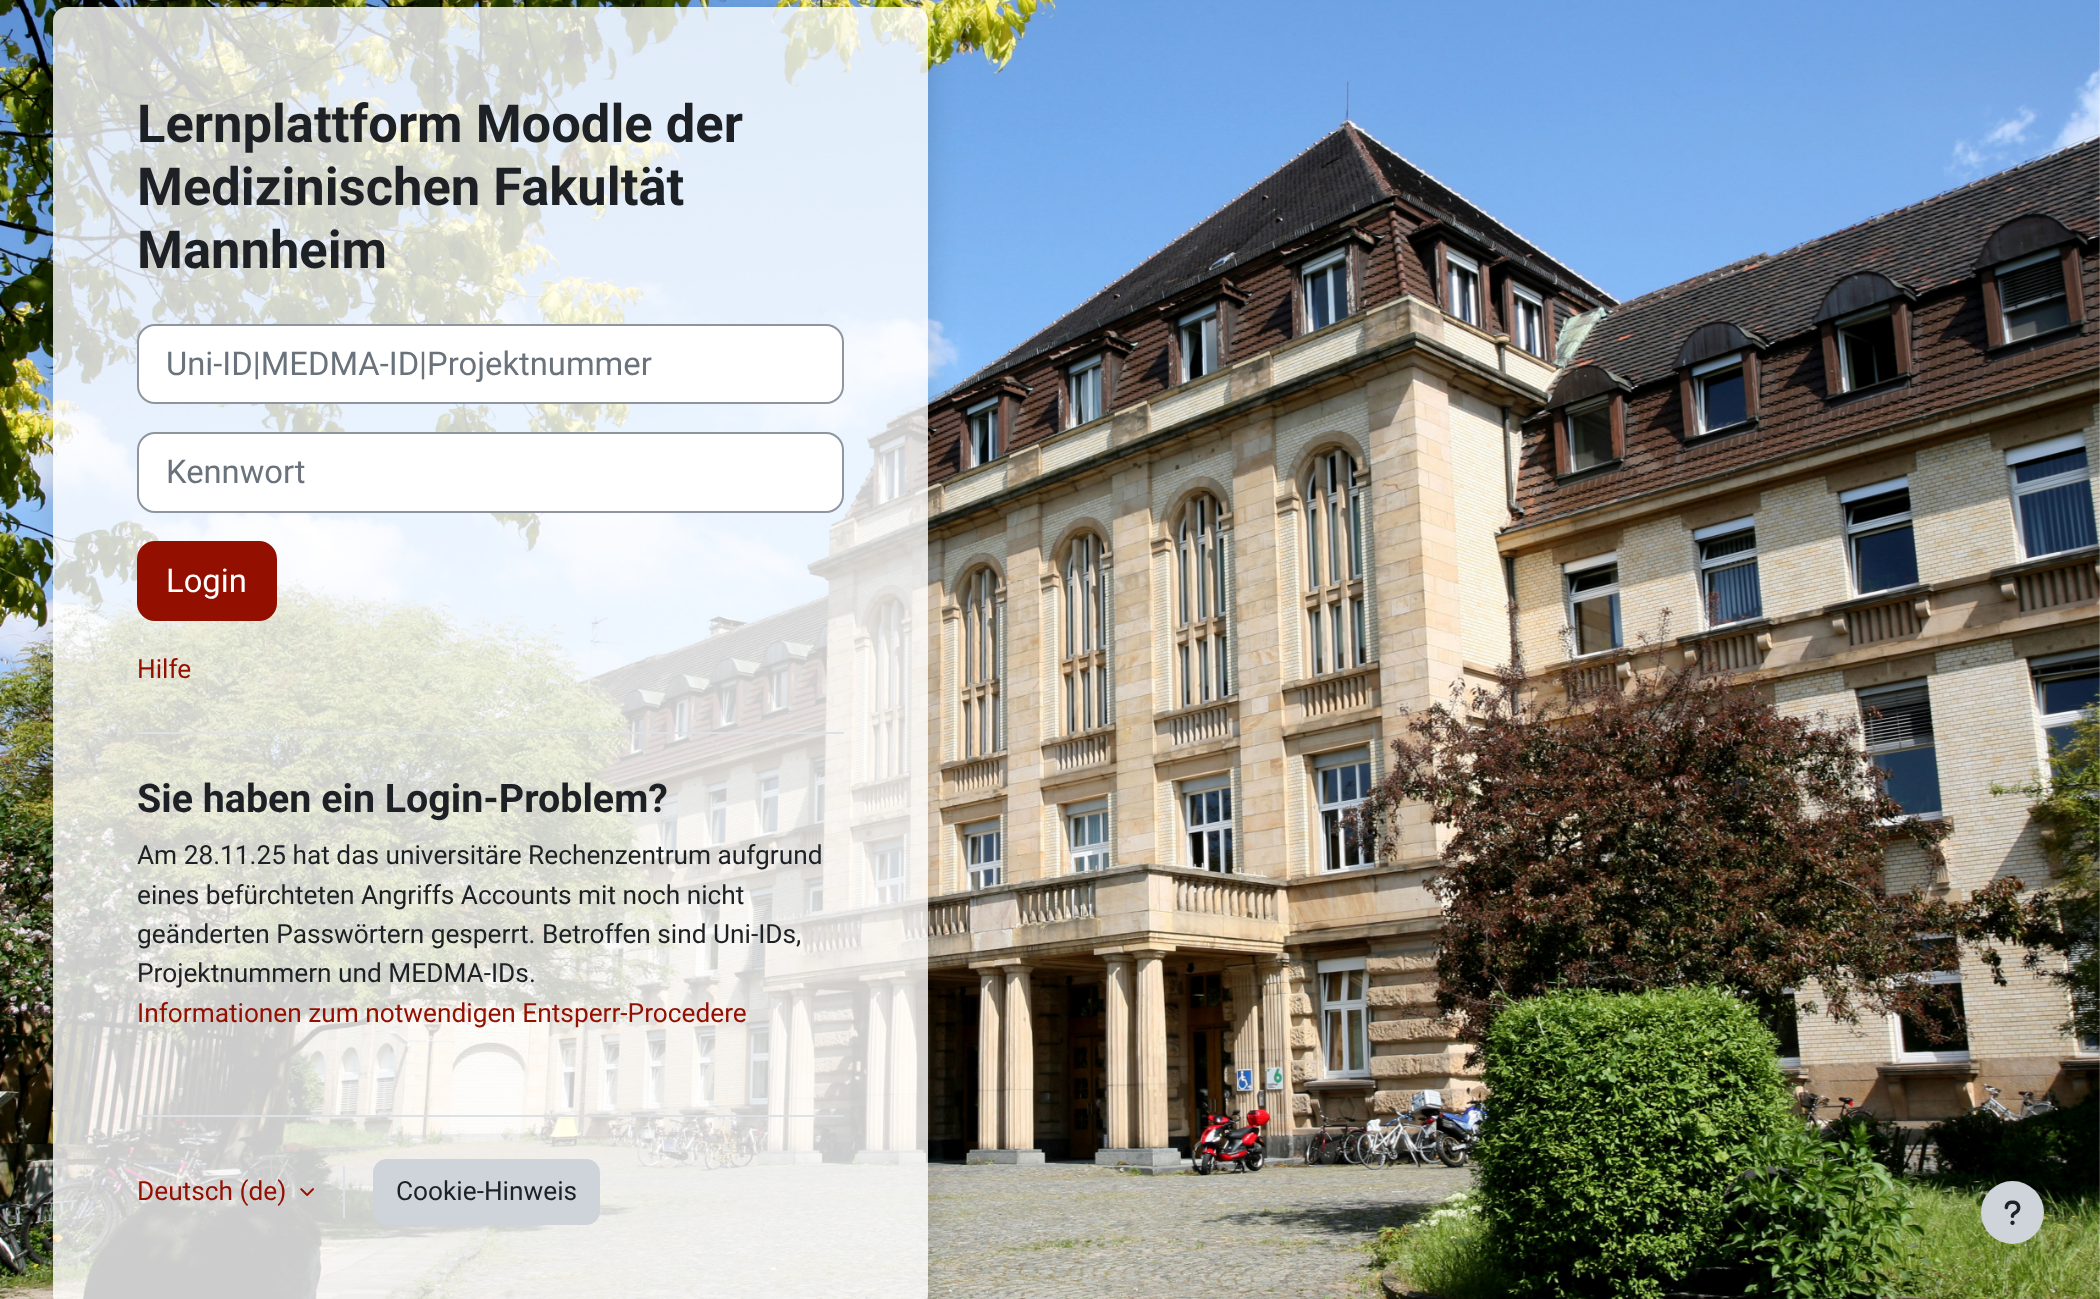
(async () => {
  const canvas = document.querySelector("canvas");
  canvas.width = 2100;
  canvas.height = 1299;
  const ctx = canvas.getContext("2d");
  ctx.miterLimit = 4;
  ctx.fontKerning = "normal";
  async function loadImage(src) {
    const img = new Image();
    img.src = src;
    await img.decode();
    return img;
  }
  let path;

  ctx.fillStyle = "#ffffff";
  ctx.fillRect(0, 0, 2100, 1299);
  ctx.drawImage(await loadImage("img/1.png"), 0, 0, 2100, 1299);
  ctx.save();
  path = new Path2D("M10 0H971V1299H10ZM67 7H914C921.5 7 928 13.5 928 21V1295C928 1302.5 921.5 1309 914 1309H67C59.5 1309 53 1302.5 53 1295V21C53 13.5 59.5 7 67 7Z");
  ctx.clip(path, "evenodd");
  ctx.fillStyle = "rgba(0, 0, 0, 0.15)";
  ctx.filter = "blur(14px)";
  ctx.beginPath();
  ctx.roundRect(53, 21, 875, 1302, 14);
  ctx.fill();
  ctx.filter = "none";
  ctx.restore();
  ctx.fillStyle = "rgba(255, 255, 255, 0.8)";
  ctx.beginPath();
  ctx.roundRect(53, 7, 875, 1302, 14);
  ctx.fill();
  ctx.fillStyle = "#ffffff";
  ctx.beginPath();
  ctx.roundRect(138, 325, 705, 78, 17);
  ctx.fill();
  ctx.strokeStyle = "#8f959e";
  ctx.lineWidth = 2;
  ctx.stroke();
  ctx.beginPath();
  ctx.roundRect(138, 433, 705, 79, 17);
  ctx.fill();
  ctx.stroke();
  ctx.fillStyle = "#930f00";
  ctx.beginPath();
  ctx.roundRect(138, 542, 138, 78, 17);
  ctx.fill();
  ctx.strokeStyle = "#930f00";
  ctx.stroke();
  ctx.fillStyle = "#dee2e6";
  ctx.fillRect(137, 732, 707, 2);
  ctx.fillRect(137, 1115, 707, 2);
  ctx.drawImage(await loadImage("img/2.png"), 300, 1188, 14, 8);
  ctx.fillRect(343, 1166, 2, 52);
  ctx.fillStyle = "#ced4da";
  ctx.beginPath();
  ctx.roundRect(374, 1160, 225, 64, 13);
  ctx.fill();
  ctx.strokeStyle = "#ced4da";
  ctx.stroke();
  ctx.beginPath();
  ctx.arc(2012.5, 1212.5, 31.5, 0, Math.PI * 2);
  ctx.fill();
  ctx.drawImage(await loadImage("img/3.png"), 2004, 1200, 17, 25);
  ctx.font = "bold 52.5px Roboto";
  ctx.fillStyle = "#1d2125";
  for (const [text, x, y] of [
    ["Lernplattform Moodle der", 137, 142],
    ["Medizinischen Fakultät", 137, 205],
    ["Mannheim", 137, 268],
  ]) {
    ctx.fillText(text, x, y);
  }
  ctx.font = "32.75px Roboto";
  ctx.fillStyle = "#6a737b";
  ctx.fillText("Uni-ID|MEDMA-ID|Projektnummer", 166, 375);
  ctx.fillText("Kennwort", 166, 483);
  ctx.fillStyle = "#ffffff";
  ctx.fillText("Login", 166, 592);
  ctx.font = "26.25px Roboto";
  ctx.fillStyle = "#930f00";
  ctx.fillText("Hilfe", 137, 678);
  ctx.font = "bold 39.4px Roboto";
  ctx.fillStyle = "#1d2125";
  ctx.fillText("Sie haben ein Login-Problem?", 137, 812);
  ctx.font = "26.25px Roboto";
  for (const [text, x, y] of [
    ["Am 28.11.25 hat das universitäre Rechenzentrum aufgrund", 137, 864],
    ["eines befürchteten Angriffs Accounts mit noch nicht", 137, 904],
    ["geänderten Passwörtern gesperrt. Betroffen sind Uni-IDs,", 137, 943],
    ["Projektnummern und MEDMA-IDs.", 137, 982],
  ]) {
    ctx.fillText(text, x, y);
  }
  ctx.fillStyle = "#930f00";
  ctx.fillText("Informationen zum notwendigen Entsperr-Procedere", 137, 1022);
  ctx.fillText("Deutsch (de)", 137, 1200);
  ctx.fillStyle = "#1d2125";
  ctx.fillText("Cookie-Hinweis", 396, 1200);
})();
